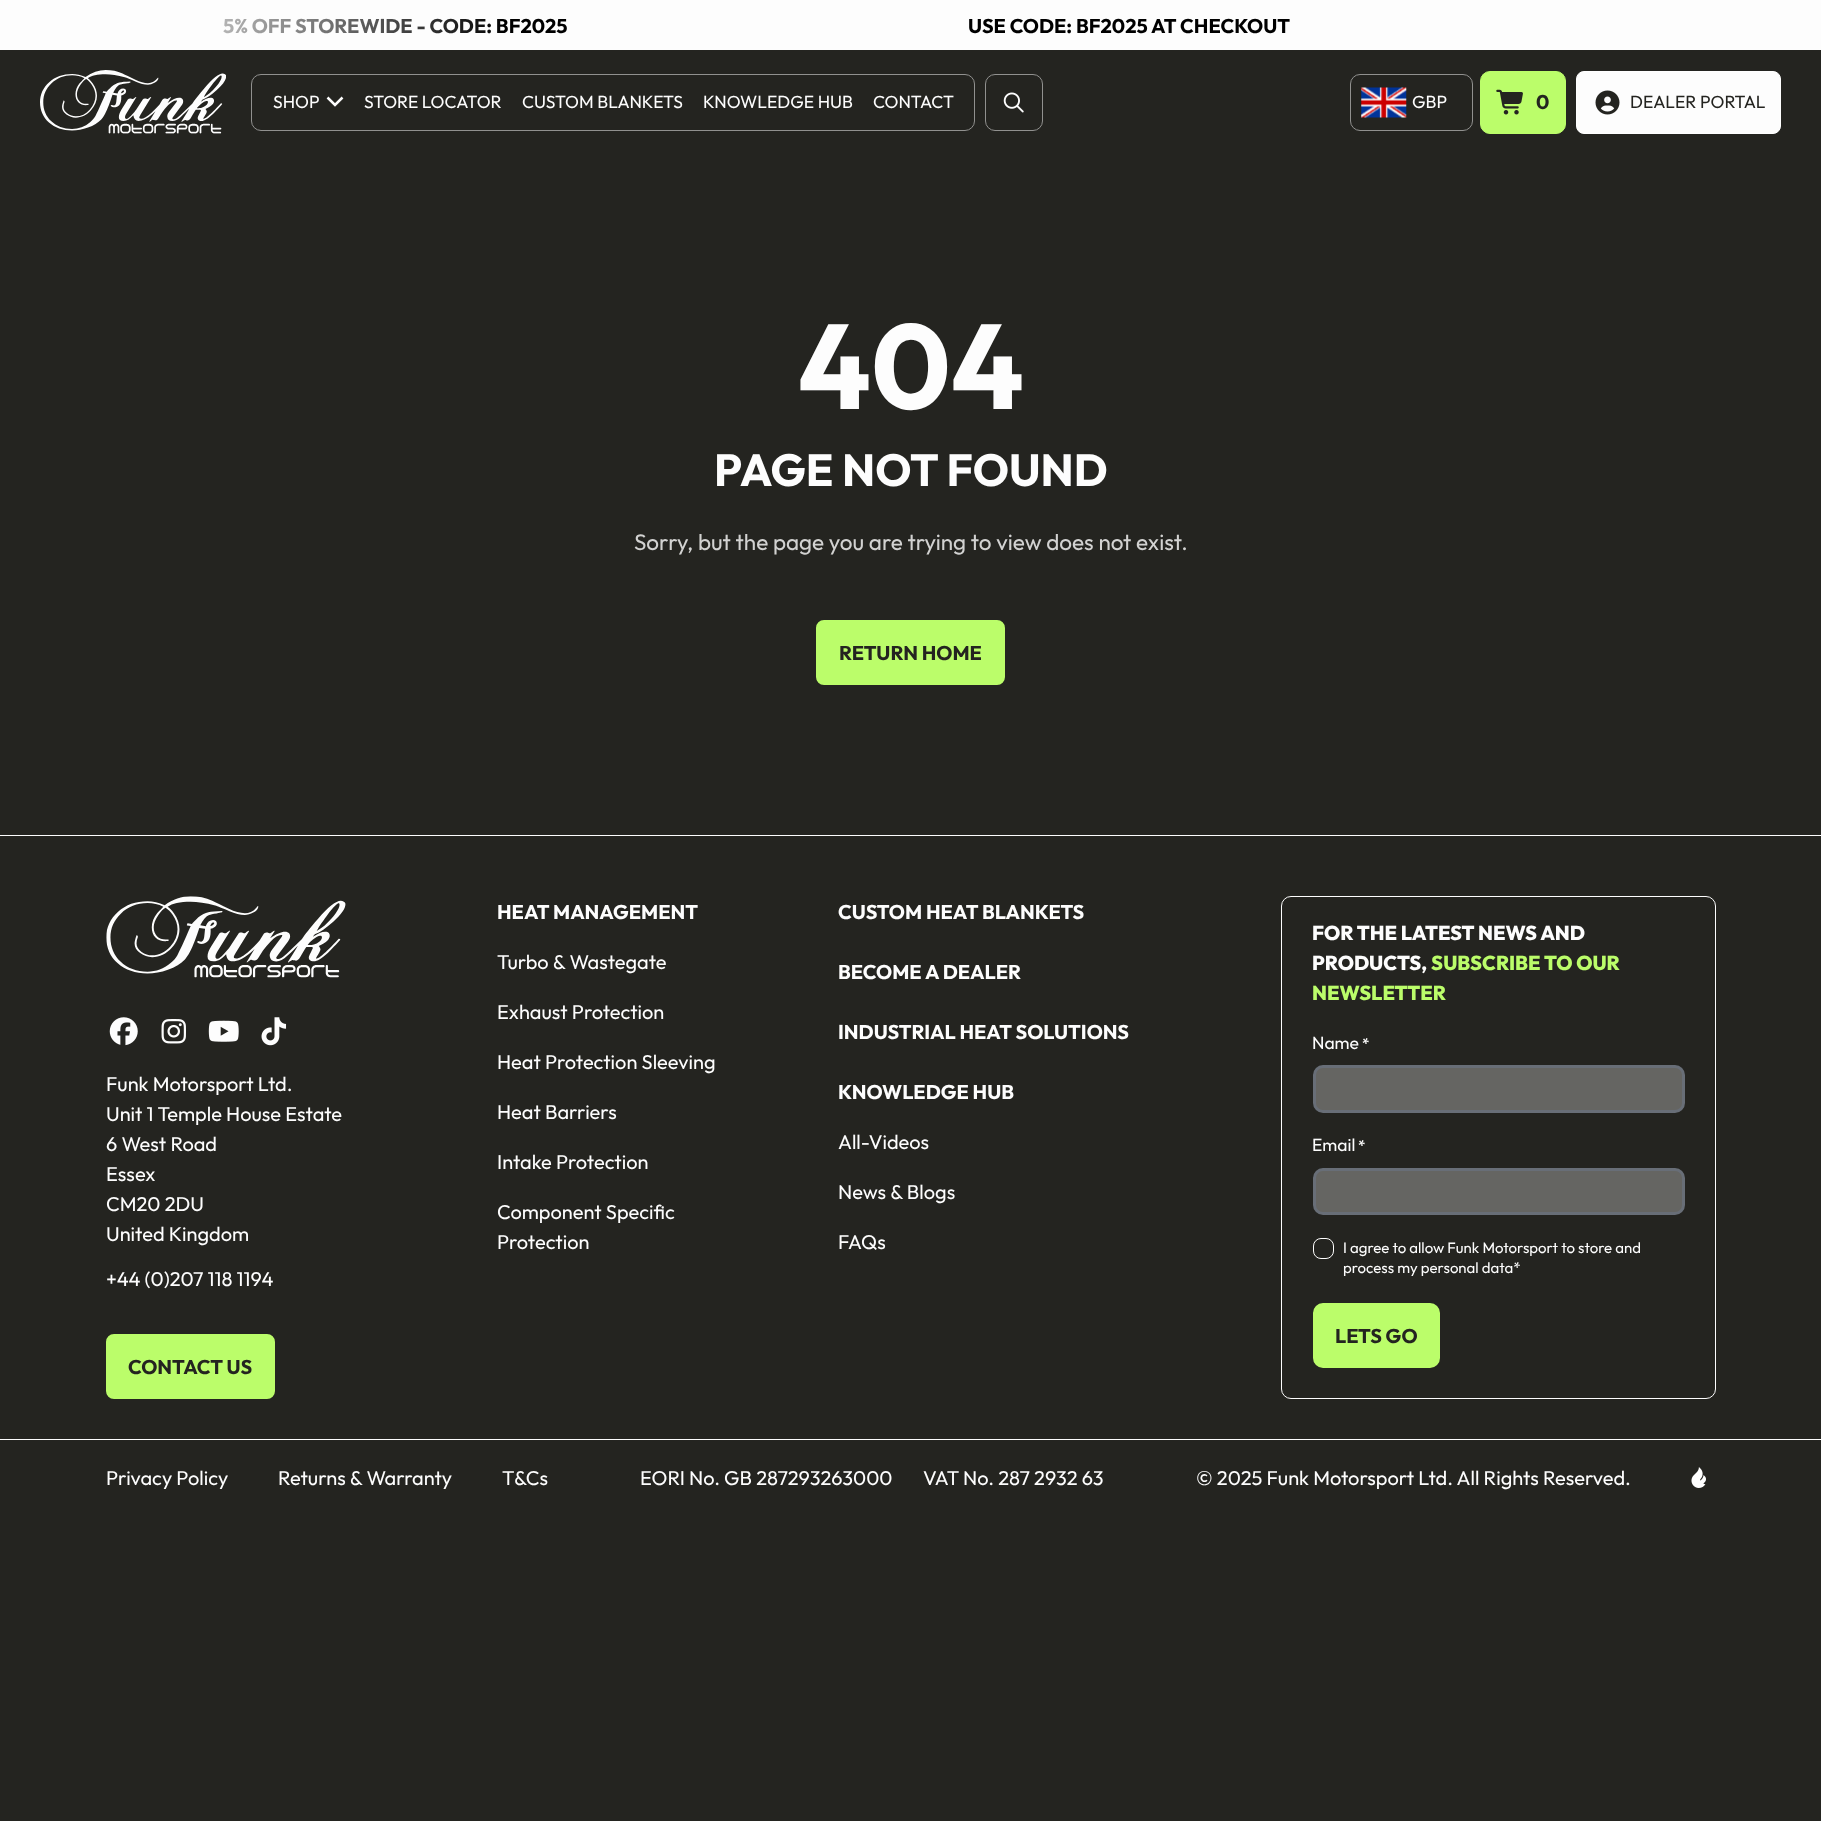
(async () => {
  const canvas = document.querySelector("canvas");
  canvas.width = 1821;
  canvas.height = 1821;
  const ctx = canvas.getContext("2d");
  ctx.miterLimit = 4;
  ctx.fontKerning = "normal";
  async function loadImage(src) {
    const img = new Image();
    img.src = src;
    await img.decode();
    return img;
  }
  let gradient, path;

  ctx.fillStyle = "#242420";
  ctx.fillRect(0, 0, 1821, 1821);
  ctx.fillStyle = "#fdfdfd";
  ctx.fillRect(0, 0, 1821, 50);
  ctx.drawImage(await loadImage("img/1.png"), 40, 70, 186, 64);
  ctx.beginPath();
  ctx.roundRect(251.5, 74.5, 723, 56, 9.5);
  ctx.strokeStyle = "#91918f";
  ctx.stroke();
  path = new Path2D("M327.5 97.5L335 105L342.5 97.5");
  ctx.strokeStyle = "#fdfdfd";
  ctx.lineWidth = 2.5;
  ctx.stroke(path);
  ctx.beginPath();
  ctx.roundRect(985.5, 74.5, 57, 56, 9.5);
  ctx.strokeStyle = "#91918f";
  ctx.lineWidth = 1;
  ctx.stroke();
  ctx.drawImage(await loadImage("img/2.png"), 1003, 92, 21, 21);
  ctx.beginPath();
  ctx.roundRect(1350.5, 74.5, 122, 56, 9.5);
  ctx.stroke();
  ctx.drawImage(await loadImage("img/3.png"), 1361, 87, 46, 31);
  ctx.fillStyle = "#bbfd6a";
  ctx.beginPath();
  ctx.roundRect(1480.5, 71.5, 85, 62, 9.5);
  ctx.fill();
  ctx.strokeStyle = "#bbfd6a";
  ctx.stroke();
  ctx.drawImage(await loadImage("img/4.png"), 1496, 89, 27, 26);
  ctx.fillStyle = "#fdfdfd";
  ctx.beginPath();
  ctx.roundRect(1576.5, 71.5, 204, 62, 7.5);
  ctx.fill();
  ctx.strokeStyle = "#ffffff";
  ctx.stroke();
  ctx.drawImage(await loadImage("img/5.png"), 1595, 90, 25, 25);
  ctx.fillStyle = "#bbfd6a";
  ctx.beginPath();
  ctx.roundRect(817.5, 621.5, 186, 62, 6.5);
  ctx.fill();
  ctx.strokeStyle = "#bbfd6a";
  ctx.lineWidth = 3;
  ctx.stroke();
  ctx.fillStyle = "#fdfdfd";
  ctx.fillRect(0, 835, 1821, 1);
  ctx.drawImage(await loadImage("img/6.png"), 106, 896, 240, 82);
  ctx.drawImage(await loadImage("img/7.png"), 109, 1017, 29, 29);
  ctx.drawImage(await loadImage("img/8.png"), 161, 1019, 25, 25);
  ctx.drawImage(await loadImage("img/9.png"), 208, 1020, 31, 22);
  ctx.drawImage(await loadImage("img/10.png"), 261, 1017, 26, 29);
  ctx.fillStyle = "#bbfd6a";
  ctx.beginPath();
  ctx.roundRect(107.5, 1335.5, 166, 62, 6.5);
  ctx.fill();
  ctx.stroke();
  ctx.beginPath();
  ctx.roundRect(1281.5, 896.5, 434, 502, 9.5);
  ctx.strokeStyle = "#fdfdfd";
  ctx.lineWidth = 1;
  ctx.stroke();
  ctx.fillStyle = "rgba(253, 253, 253, 0.3)";
  ctx.beginPath();
  ctx.roundRect(1314.5, 1066.5, 369, 45, 8.5);
  ctx.fill();
  ctx.strokeStyle = "#686e77";
  ctx.lineWidth = 3;
  ctx.stroke();
  ctx.fillStyle = "#656562";
  ctx.beginPath();
  ctx.roundRect(1314.5, 1169.5, 369, 44, 8.5);
  ctx.fill();
  ctx.stroke();
  ctx.beginPath();
  ctx.roundRect(1313.5, 1238.5, 20, 20, 7.5);
  ctx.strokeStyle = "#fdfdfd";
  ctx.lineWidth = 1;
  ctx.stroke();
  ctx.fillStyle = "#bbfd6a";
  ctx.beginPath();
  ctx.roundRect(1314.5, 1304.5, 124, 62, 8.5);
  ctx.fill();
  ctx.strokeStyle = "#bbfd6a";
  ctx.lineWidth = 3;
  ctx.stroke();
  ctx.fillStyle = "#fdfdfd";
  ctx.fillRect(0, 1439, 1821, 1);
  ctx.drawImage(await loadImage("img/11.png"), 1691, 1467, 15, 21);
  ctx.font = "bold 20px Outfit";
  ctx.fillStyle = "#000000";
  ctx.fillText("5% OFF STOREWIDE - CODE: BF2025", 223, 33);
  ctx.fillText("USE CODE: BF2025 AT CHECKOUT", 968, 33);
  gradient = ctx.createLinearGradient(106, 25, 509, 25);
  gradient.addColorStop(0, "#fdfdfd");
  gradient.addColorStop(1, "rgba(253, 253, 253, 0)");
  ctx.fillStyle = gradient;
  ctx.fillRect(223, 18, 277, 16);
  ctx.font = "17.5px Outfit";
  ctx.fillStyle = "#fdfdfd";
  for (const [text, x, y] of [
    ["SHOP", 273, 108],
    ["STORE LOCATOR", 364, 108],
    ["CUSTOM BLANKETS", 522, 108],
    ["KNOWLEDGE HUB", 703, 108],
    ["CONTACT", 873, 108],
    ["GBP", 1412, 108],
  ]) {
    ctx.fillText(text, x, y);
  }
  ctx.font = "bold 20px Outfit";
  ctx.fillStyle = "#242420";
  ctx.fillText("0", 1536, 109);
  ctx.font = "17.5px Outfit";
  ctx.fillText("DEALER PORTAL", 1630, 108);
  ctx.font = "bold 120px Outfit";
  ctx.fillStyle = "#fdfdfd";
  ctx.fillText("404", 798, 409);
  ctx.font = "bold 45px Outfit";
  ctx.fillText("PAGE NOT FOUND", 714, 486);
  ctx.font = "22.5px Outfit";
  ctx.fillStyle = "#d2d2d1";
  ctx.fillText("Sorry, but the page you are trying to view does not exist.", 634, 550);
  ctx.font = "bold 20px Outfit";
  ctx.fillStyle = "#242420";
  ctx.fillText("RETURN HOME", 839, 660);
  ctx.font = "20px Outfit";
  ctx.fillStyle = "#fdfdfd";
  for (const [text, x, y] of [
    ["Funk Motorsport Ltd.", 106, 1091],
    ["Unit 1 Temple House Estate", 106, 1121],
    ["6 West Road", 106, 1151],
    ["Essex", 106, 1181],
    ["CM20 2DU", 106, 1211],
    ["United Kingdom", 106, 1241],
    ["+44 (0)207 118 1194", 106, 1286],
  ]) {
    ctx.fillText(text, x, y);
  }
  ctx.font = "bold 20px Outfit";
  ctx.fillStyle = "#242420";
  ctx.fillText("CONTACT US", 128, 1374);
  ctx.fillStyle = "#fdfdfd";
  ctx.fillText("HEAT MANAGEMENT", 497, 919);
  ctx.font = "20px Outfit";
  for (const [text, x, y] of [
    ["Turbo & Wastegate", 497, 969],
    ["Exhaust Protection", 497, 1019],
    ["Heat Protection Sleeving", 497, 1069],
    ["Heat Barriers", 497, 1119],
    ["Intake Protection", 497, 1169],
    ["Component Specific", 497, 1219],
    ["Protection", 497, 1249],
  ]) {
    ctx.fillText(text, x, y);
  }
  ctx.font = "bold 20px Outfit";
  for (const [text, x, y] of [
    ["CUSTOM HEAT BLANKETS", 838, 919],
    ["BECOME A DEALER", 838, 979],
    ["INDUSTRIAL HEAT SOLUTIONS", 838, 1039],
    ["KNOWLEDGE HUB", 838, 1099],
  ]) {
    ctx.fillText(text, x, y);
  }
  ctx.font = "20px Outfit";
  for (const [text, x, y] of [
    ["All-Videos", 838, 1149],
    ["News & Blogs", 838, 1199],
    ["FAQs", 838, 1249],
  ]) {
    ctx.fillText(text, x, y);
  }
  ctx.font = "800 20px Outfit";
  ctx.fillText("FOR THE LATEST NEWS AND", 1312, 940);
  ctx.fillText("PRODUCTS,", 1312, 970);
  ctx.fillStyle = "#bbfd6a";
  ctx.fillText("SUBSCRIBE TO OUR", 1431, 970);
  ctx.fillText("NEWSLETTER", 1312, 1000);
  ctx.font = "17.5px Outfit";
  ctx.fillStyle = "#fdfdfd";
  ctx.fillText("Name", 1312, 1049);
  ctx.font = "500 15px Outfit";
  ctx.fillText("*", 1362, 1049);
  ctx.font = "17.5px Outfit";
  ctx.fillText("Email", 1312, 1151);
  ctx.font = "500 15px Outfit";
  ctx.fillText("*", 1358, 1151);
  ctx.font = "15px Outfit";
  ctx.fillText("I agree to allow Funk Motorsport to store and", 1343, 1253);
  ctx.fillText("process my personal data*", 1343, 1273);
  ctx.font = "bold 20px Outfit";
  ctx.fillStyle = "#242420";
  ctx.fillText("LETS GO", 1335, 1343);
  ctx.font = "20px Outfit";
  ctx.fillStyle = "#fdfdfd";
  for (const [text, x, y] of [
    ["Privacy Policy", 106, 1485],
    ["Returns & Warranty", 278, 1485],
    ["T&Cs", 502, 1485],
    ["EORI No. GB 287293263000", 640, 1485],
    ["VAT No. 287 2932 63", 923, 1485],
    ["© 2025 Funk Motorsport Ltd. All Rights Reserved.", 1196, 1485],
  ]) {
    ctx.fillText(text, x, y);
  }
})();
